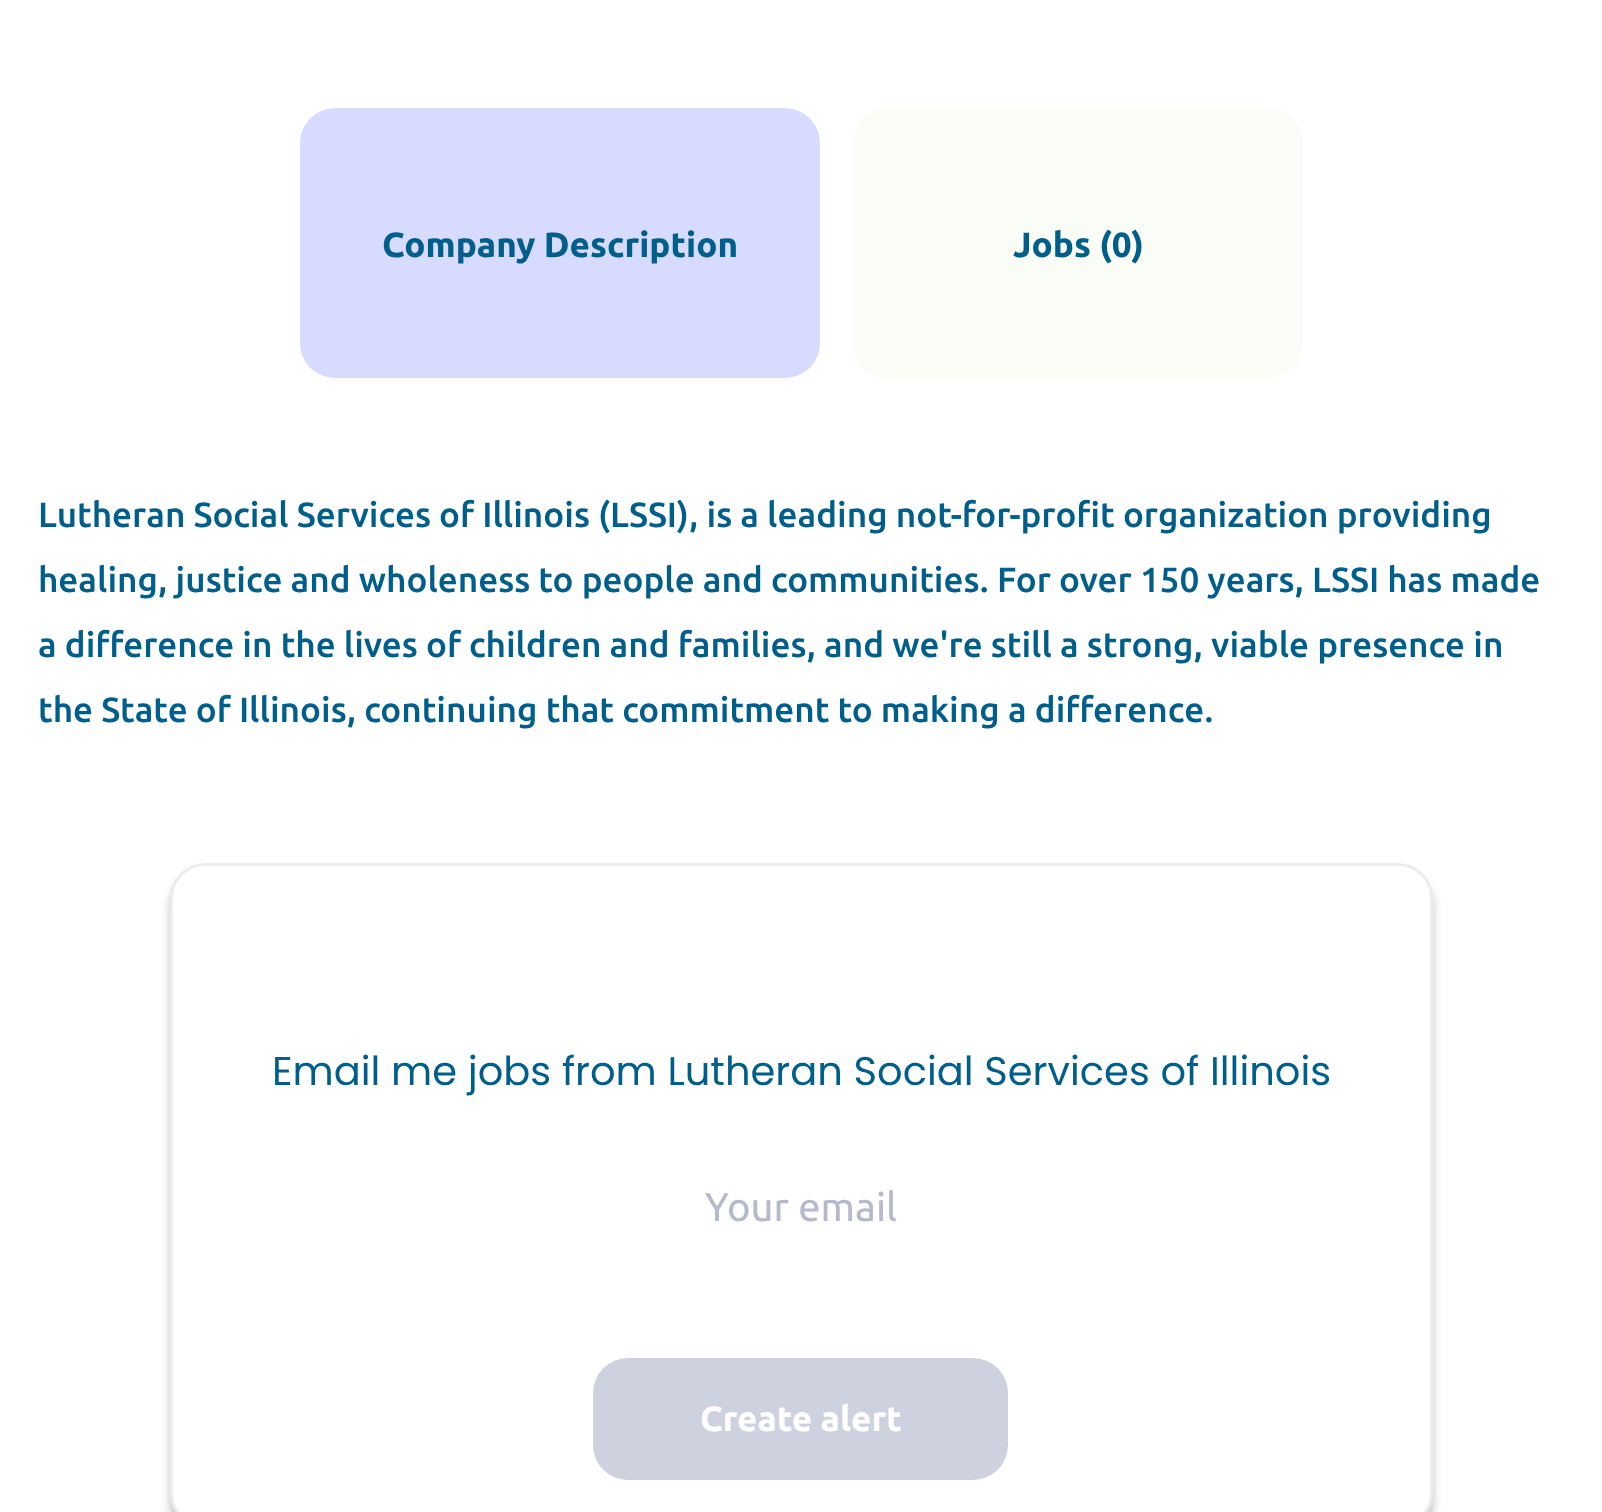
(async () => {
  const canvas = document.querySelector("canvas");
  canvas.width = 1602;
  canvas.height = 1512;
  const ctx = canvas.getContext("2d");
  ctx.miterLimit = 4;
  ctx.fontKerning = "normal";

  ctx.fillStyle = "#ffffff";
  ctx.fillRect(0, 0, 1602, 1512);
  ctx.fillStyle = "#d7dbff";
  ctx.beginPath();
  ctx.roundRect(300, 108, 520, 270, 35);
  ctx.fill();
  ctx.fillStyle = "#fafcf6";
  ctx.beginPath();
  ctx.roundRect(853, 108, 450, 270, 35);
  ctx.fill();
  ctx.fillStyle = "rgba(0, 0, 0, 0.25)";
  ctx.filter = "blur(5px)";
  ctx.beginPath();
  ctx.roundRect(170, 873, 1263, 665, 35);
  ctx.fill();
  ctx.filter = "none";
  ctx.fillStyle = "#ffffff";
  ctx.beginPath();
  ctx.roundRect(171.5, 864.5, 1260, 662, 33.5);
  ctx.fill();
  ctx.strokeStyle = "#ebecf1";
  ctx.lineWidth = 3;
  ctx.stroke();
  ctx.fillStyle = "#ced2de";
  ctx.beginPath();
  ctx.roundRect(593, 1358, 415, 122, 35);
  ctx.fill();
  ctx.font = "bold 35px Ubuntu";
  ctx.fillStyle = "#005e8a";
  ctx.fillText("Company Description", 382, 257);
  ctx.fillText("Jobs (0)", 1013, 257);
  ctx.font = "500 35px Ubuntu";
  for (const [text, x, y] of [
    ["Lutheran Social Services of Illinois (LSSI), is a leading not-for-profit organization providing", 38, 527],
    ["healing, justice and wholeness to people and communities. For over 150 years, LSSI has made", 38, 592],
    ["a difference in the lives of children and families, and we're still a strong, viable presence in", 38, 657],
    ["the State of Illinois, continuing that commitment to making a difference.", 38, 722],
  ]) {
    ctx.fillText(text, x, y);
  }
  ctx.font = "40px Poppins";
  ctx.fillText("Email me jobs from Lutheran Social Services of Illinois", 272, 1085);
  ctx.font = "40px Ubuntu";
  ctx.fillStyle = "#b4b9cc";
  ctx.fillText("Your email", 705, 1221);
  ctx.font = "bold 35px Ubuntu";
  ctx.fillStyle = "#ffffff";
  ctx.fillText("Create alert", 700, 1431);
})();
